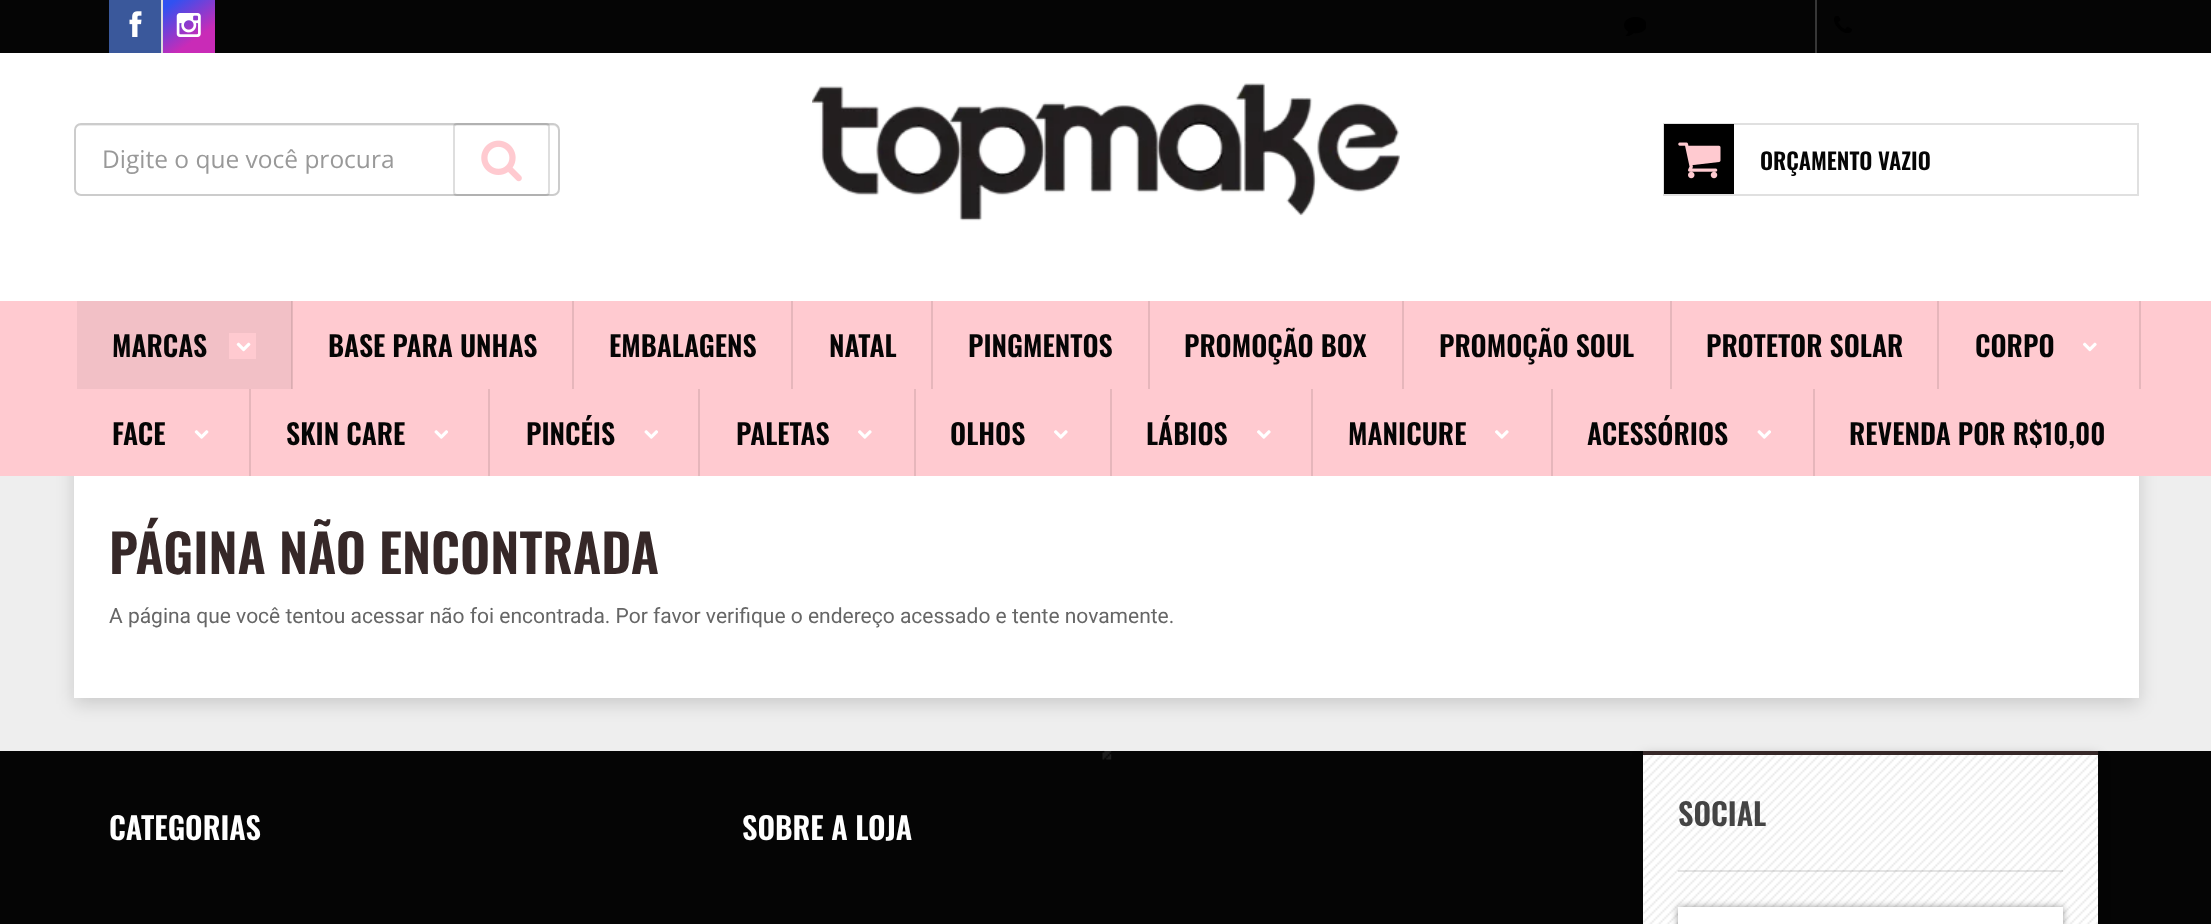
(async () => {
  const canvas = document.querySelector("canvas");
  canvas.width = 2211;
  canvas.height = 924;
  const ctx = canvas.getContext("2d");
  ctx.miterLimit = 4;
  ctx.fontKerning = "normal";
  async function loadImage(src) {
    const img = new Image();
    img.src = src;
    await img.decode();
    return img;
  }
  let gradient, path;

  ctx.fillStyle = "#eeeeee";
  ctx.fillRect(0, 0, 2211, 924);
  ctx.fillStyle = "#050505";
  ctx.fillRect(0, 0, 2211, 53);
  ctx.fillStyle = "#3a589b";
  ctx.fillRect(109, 0, 52, 53);
  ctx.drawImage(await loadImage("img/1.png"), 129, 11, 13, 26);
  ctx.fillStyle = "#dddddd";
  ctx.fillRect(161, 0, 2, 53);
  gradient = ctx.createLinearGradient(168, -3.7, 210, 56);
  gradient.addColorStop(0.1, "#3051f1");
  gradient.addColorStop(0.7, "#c92bb7");
  ctx.fillStyle = gradient;
  ctx.fillRect(163, 0, 52, 53);
  ctx.drawImage(await loadImage("img/2.png"), 176, 13, 25, 24);
  ctx.drawImage(await loadImage("img/3.png"), 1624, 17, 22, 19);
  ctx.fillStyle = "#373737";
  ctx.fillRect(1815, 0, 2, 53);
  ctx.drawImage(await loadImage("img/4.png"), 1834, 16, 18, 17);
  ctx.fillStyle = "#ffffff";
  ctx.fillRect(0, 53, 2211, 248);
  ctx.fillStyle = "#ececec";
  path = new Path2D("M80 126H553C556 126 558 128 558 131V129C558 126 556 124 553 124H80C77 124 75 126 75 129V131C75 128 78 126 80 126Z");
  ctx.fill(path);
  ctx.beginPath();
  ctx.roundRect(75, 124, 484, 71, 6);
  ctx.strokeStyle = "#cccccc";
  ctx.lineWidth = 2;
  ctx.stroke();
  ctx.beginPath();
  ctx.roundRect(454, 124, 95, 71, 3);
  ctx.strokeStyle = "rgba(0, 0, 0, 0.13)";
  ctx.stroke();
  ctx.drawImage(await loadImage("img/5.png"), 481, 140, 41, 42);
  ctx.drawImage(await loadImage("img/6.png"), 812, 83, 588, 138);
  ctx.strokeStyle = "#e0e0e0";
  ctx.strokeRect(1664, 124, 474, 71);
  ctx.fillStyle = "#000000";
  ctx.fillRect(1664, 124, 70, 70);
  ctx.drawImage(await loadImage("img/7.png"), 1678, 142, 43, 37);
  ctx.fillStyle = "rgba(0, 0, 0, 0.15)";
  ctx.filter = "blur(9px)";
  ctx.beginPath();
  ctx.rect(74, 376, 2065, 328);
  ctx.fill();
  ctx.filter = "none";
  for (const [x, y, w, h, color] of [
    [0, 301, 2211, 175, "#ffcad0"],
    [77, 301, 215, 88, "#f2c0c6"],
    [291, 301, 2, 88, "rgba(0, 0, 0, 0.1)"],
    [229, 333, 27, 26, "#ffcad0"],
  ]) {
    ctx.fillStyle = color;
    ctx.fillRect(x, y, w, h);
  }
  ctx.drawImage(await loadImage("img/8.png"), 236, 342, 15, 10);
  for (const [x, y, w, h, color] of [
    [572, 301, 2, 88, "#e6b6bb"],
    [791, 301, 2, 88, "#e6b6bb"],
    [931, 301, 2, 88, "#e6b6bb"],
    [1148, 301, 2, 88, "#e6b6bb"],
    [1402, 301, 2, 88, "#e6b6bb"],
    [1670, 301, 2, 88, "#e6b6bb"],
    [1937, 301, 2, 88, "#e6b6bb"],
    [2139, 301, 2, 88, "#e6b6bb"],
  ]) {
    ctx.fillStyle = color;
    ctx.fillRect(x, y, w, h);
  }
  ctx.drawImage(await loadImage("img/9.png"), 2083, 342, 14, 10);
  ctx.fillRect(249, 389, 2, 87);
  ctx.drawImage(await loadImage("img/10.png"), 194, 430, 15, 9);
  ctx.fillRect(488, 389, 2, 87);
  ctx.drawImage(await loadImage("img/11.png"), 434, 430, 14, 9);
  ctx.fillRect(698, 389, 2, 87);
  ctx.drawImage(await loadImage("img/11.png"), 644, 430, 14, 9);
  ctx.fillRect(914, 389, 2, 87);
  ctx.drawImage(await loadImage("img/12.png"), 858, 430, 14, 9);
  ctx.fillRect(1110, 389, 2, 87);
  ctx.drawImage(await loadImage("img/12.png"), 1054, 430, 14, 9);
  ctx.fillRect(1311, 389, 2, 87);
  ctx.drawImage(await loadImage("img/12.png"), 1257, 430, 14, 9);
  ctx.fillRect(1551, 389, 2, 87);
  ctx.drawImage(await loadImage("img/12.png"), 1495, 430, 14, 9);
  ctx.fillRect(1813, 389, 2, 87);
  ctx.drawImage(await loadImage("img/11.png"), 1757, 430, 14, 9);
  ctx.fillStyle = "#ffffff";
  ctx.fillRect(74, 476, 2065, 222);
  ctx.fillStyle = "#050505";
  ctx.fillRect(0, 751, 2211, 173);
  ctx.drawImage(await loadImage("img/13.png"), 1102, 750, 10, 10);
  ctx.fillStyle = "rgba(0, 0, 0, 0.3)";
  ctx.filter = "blur(6px)";
  ctx.beginPath();
  ctx.rect(1643, 756, 455, 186);
  ctx.fill();
  ctx.filter = "none";
  ctx.fillStyle = "#ffffff";
  ctx.fillRect(1643, 755, 455, 169);
  ctx.drawImage(await loadImage("img/14.png"), 1643, 751, 456, 173);
  ctx.fillStyle = "#362828";
  ctx.fillRect(1643, 751, 455, 4);
  ctx.fillStyle = "rgba(0, 0, 0, 0.1)";
  ctx.fillRect(1678, 870, 385, 2);
  ctx.fillStyle = "rgba(0, 0, 0, 0.4)";
  ctx.filter = "blur(3.5px)";
  ctx.beginPath();
  ctx.rect(1678, 907, 385, 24);
  ctx.fill();
  ctx.filter = "none";
  ctx.fillStyle = "#ffffff";
  ctx.fillRect(1678, 907, 385, 17);
  ctx.font = "24.5px Open Sans";
  ctx.fillStyle = "#999999";
  ctx.fillText("Digite o que você procura", 102, 168);
  ctx.font = "600 22.75px Oswald";
  ctx.fillStyle = "#050505";
  ctx.fillText("ORÇAMENTO VAZIO", 1760, 170);
  ctx.font = "600 28px Oswald";
  for (const [text, x, y] of [
    ["MARCAS", 112, 357],
    ["BASE PARA UNHAS", 328, 357],
    ["EMBALAGENS", 609, 357],
    ["NATAL", 829, 357],
    ["PINGMENTOS", 968, 357],
    ["PROMOÇÃO BOX", 1184, 357],
    ["PROMOÇÃO SOUL", 1439, 357],
    ["PROTETOR SOLAR", 1706, 357],
    ["CORPO", 1975, 357],
    ["FACE", 112, 445],
    ["SKIN CARE", 286, 445],
    ["PINCÉIS", 526, 445],
    ["PALETAS", 736, 445],
    ["OLHOS", 950, 445],
    ["LÁBIOS", 1146, 445],
    ["MANICURE", 1348, 445],
    ["ACESSÓRIOS", 1587, 445],
    ["REVENDA POR R$10,00", 1849, 445],
  ]) {
    ctx.fillText(text, x, y);
  }
  ctx.font = "600 52.5px Oswald";
  ctx.fillStyle = "#362828";
  ctx.fillText("PÁGINA NÃO ENCONTRADA", 109, 574);
  ctx.font = "21px Roboto";
  ctx.fillStyle = "#666666";
  ctx.fillText("A página que você tentou acessar não foi encontrada. Por favor verifique o endereço acessado e tente novamente.", 109, 623);
  ctx.font = "600 30.5px Oswald";
  ctx.fillStyle = "#ffffff";
  ctx.fillText("CATEGORIAS", 109, 840);
  ctx.fillText("SOBRE A LOJA", 742, 840);
  ctx.fillStyle = "#444444";
  ctx.fillText("SOCIAL", 1678, 826);
})();
